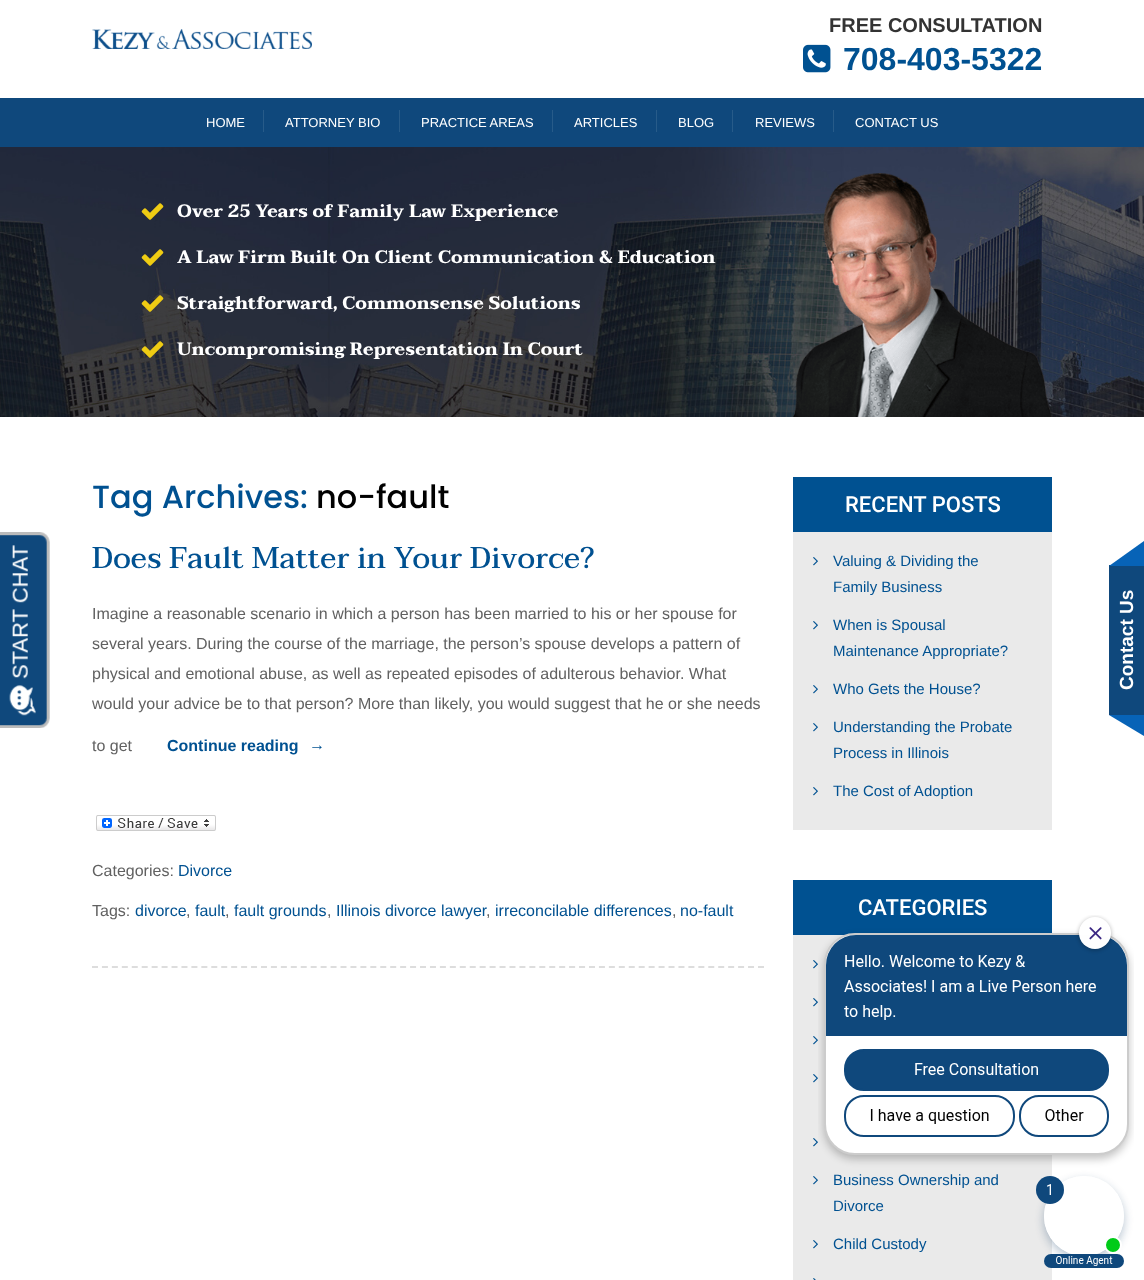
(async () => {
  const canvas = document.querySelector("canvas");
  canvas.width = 1144;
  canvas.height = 1280;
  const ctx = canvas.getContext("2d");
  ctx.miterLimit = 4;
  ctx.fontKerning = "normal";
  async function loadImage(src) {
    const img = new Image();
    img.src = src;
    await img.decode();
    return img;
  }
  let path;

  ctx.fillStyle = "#ffffff";
  ctx.fillRect(0, 0, 1144, 1280);
  ctx.drawImage(await loadImage("img/1.png"), 0, 532, 50, 196);
  ctx.drawImage(await loadImage("img/2.png"), 92, 29, 220, 20);
  ctx.drawImage(await loadImage("img/3.png"), 803, 44, 28, 29);
  for (const [x, y, w, h, color] of [
    [0, 98, 1144, 49, "#0f487c"],
    [263, 110, 1, 22, "#275b89"],
    [399, 110, 1, 22, "#275b89"],
    [552, 110, 1, 22, "#275b89"],
    [656, 110, 1, 22, "#275b89"],
    [732, 110, 1, 22, "#275b89"],
    [833, 110, 1, 22, "#275b89"],
  ]) {
    ctx.fillStyle = color;
    ctx.fillRect(x, y, w, h);
  }
  ctx.drawImage(await loadImage("img/4.png"), 0, 147, 1144, 270);
  ctx.drawImage(await loadImage("img/5.png"), 141, 203, 23, 17);
  ctx.drawImage(await loadImage("img/6.png"), 141, 249, 23, 17);
  ctx.drawImage(await loadImage("img/7.png"), 141, 295, 23, 17);
  ctx.drawImage(await loadImage("img/8.png"), 141, 341, 23, 17);
  ctx.drawImage(await loadImage("img/9.png"), 793, 173, 259, 244);
  path = new Path2D("M92 967H764");
  ctx.strokeStyle = "#dddddd";
  ctx.lineWidth = 2;
  ctx.setLineDash([6, 3.94]);
  ctx.stroke(path);
  ctx.drawImage(await loadImage("img/10.png"), 96, 815, 120, 16);
  ctx.fillStyle = "#eaeaea";
  ctx.fillRect(793, 532, 259, 298);
  ctx.fillStyle = "#005191";
  ctx.fillRect(793, 477, 259, 55);
  ctx.drawImage(await loadImage("img/11.png"), 813, 557, 5, 9);
  ctx.drawImage(await loadImage("img/11.png"), 813, 621, 5, 9);
  ctx.drawImage(await loadImage("img/11.png"), 813, 685, 5, 9);
  ctx.drawImage(await loadImage("img/11.png"), 813, 723, 5, 9);
  ctx.drawImage(await loadImage("img/11.png"), 813, 787, 5, 9);
  ctx.fillStyle = "#eaeaea";
  ctx.fillRect(793, 935, 259, 345);
  ctx.fillStyle = "#005191";
  ctx.fillRect(793, 880, 259, 55);
  ctx.drawImage(await loadImage("img/11.png"), 813, 960, 5, 9);
  ctx.drawImage(await loadImage("img/11.png"), 813, 998, 5, 9);
  ctx.drawImage(await loadImage("img/11.png"), 813, 1036, 5, 9);
  ctx.drawImage(await loadImage("img/11.png"), 813, 1074, 5, 9);
  ctx.drawImage(await loadImage("img/11.png"), 813, 1138, 5, 9);
  ctx.drawImage(await loadImage("img/11.png"), 813, 1176, 5, 9);
  ctx.drawImage(await loadImage("img/11.png"), 813, 1240, 5, 9);
  ctx.drawImage(await loadImage("img/12.png"), 813, 1278, 3, 2);
  ctx.fillStyle = "#0f487c";
  ctx.fillRect(1109, 565, 35, 150);
  ctx.fillStyle = "#0763b7";
  path = new Path2D("M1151 566H1109L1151 536Z");
  ctx.fill(path);
  path = new Path2D("M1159 715V745L1109 715Z");
  ctx.fill(path);
  ctx.font = "bold 20px Arimo";
  ctx.fillStyle = "#333333";
  ctx.fillText("FREE CONSULTATION", 829, 32);
  ctx.font = "bold 32px Arimo";
  ctx.fillStyle = "#005191";
  ctx.fillText("708-403-5322", 843, 70);
  ctx.font = "13px Arimo";
  ctx.fillStyle = "#ffffff";
  for (const [text, x, y] of [
    ["HOME", 206, 127],
    ["ATTORNEY BIO", 285, 127],
    ["PRACTICE AREAS", 421, 127],
    ["ARTICLES", 574, 127],
    ["BLOG", 678, 127],
    ["REVIEWS", 755, 127],
    ["CONTACT US", 855, 127],
  ]) {
    ctx.fillText(text, x, y);
  }
  ctx.font = "bold 18px Taviraj";
  for (const [text, x, y] of [
    ["Over 25 Years of Family Law Experience", 177, 217],
    ["A Law Firm Built On Client Communication & Education", 177, 263],
    ["Straightforward, Commonsense Solutions", 177, 309],
    ["Uncompromising Representation In Court", 177, 355],
  ]) {
    ctx.fillText(text, x, y);
  }
  ctx.font = "500 32px Poppins";
  ctx.fillStyle = "#005191";
  ctx.fillText("Tag Archives:", 92, 508);
  ctx.fillStyle = "#000000";
  ctx.fillText("no-fault", 316, 508);
  ctx.font = "500 30px Taviraj";
  ctx.fillStyle = "#005191";
  ctx.fillText("Does Fault Matter in Your Divorce?", 92, 568);
  ctx.font = "16px Arimo";
  ctx.fillStyle = "#616161";
  for (const [text, x, y] of [
    ["Imagine a reasonable scenario in which a person has been married to his or her spouse for", 92, 619],
    ["several years. During the course of the marriage, the person’s spouse develops a pattern of", 92, 649],
    ["physical and emotional abuse, as well as repeated episodes of adulterous behavior. What", 92, 679],
    ["would your advice be to that person? More than likely, you would suggest that he or she needs", 92, 709],
    ["to get", 92, 751],
  ]) {
    ctx.fillText(text, x, y);
  }
  ctx.font = "bold 16px Arimo";
  ctx.fillStyle = "#005191";
  ctx.fillText("Continue reading", 167, 751);
  ctx.font = "bold 16px Liberation Sans";
  ctx.fillText("→", 309, 750);
  ctx.font = "16px Arimo";
  ctx.fillStyle = "#616161";
  ctx.fillText("Categories:", 92, 876);
  ctx.fillStyle = "#005191";
  ctx.fillText("Divorce", 178, 876);
  ctx.fillStyle = "#616161";
  ctx.fillText("Tags:", 92, 916);
  ctx.fillStyle = "#005191";
  ctx.fillText("divorce", 135, 916);
  ctx.fillStyle = "#616161";
  ctx.fillText(",", 186, 916);
  ctx.fillStyle = "#005191";
  ctx.fillText("fault", 195, 916);
  ctx.fillStyle = "#616161";
  ctx.fillText(",", 225, 916);
  ctx.fillStyle = "#005191";
  ctx.fillText("fault grounds", 234, 916);
  ctx.fillStyle = "#616161";
  ctx.fillText(",", 327, 916);
  ctx.fillStyle = "#005191";
  ctx.fillText("Illinois divorce lawyer", 336, 916);
  ctx.fillStyle = "#616161";
  ctx.fillText(",", 486, 916);
  ctx.fillStyle = "#005191";
  ctx.fillText("irreconcilable differences", 495, 916);
  ctx.fillStyle = "#616161";
  ctx.fillText(",", 672, 916);
  ctx.fillStyle = "#005191";
  ctx.fillText("no-fault", 680, 916);
  ctx.font = "500 22px Roboto";
  ctx.fillStyle = "#ffffff";
  ctx.fillText("RECENT POSTS", 845, 512);
  ctx.font = "15px Arimo";
  ctx.fillStyle = "#005191";
  for (const [text, x, y] of [
    ["Valuing & Dividing the", 833, 566],
    ["Family Business", 833, 592],
    ["When is Spousal", 833, 630],
    ["Maintenance Appropriate?", 833, 656],
    ["Who Gets the House?", 833, 694],
    ["Understanding the Probate", 833, 732],
    ["Process in Illinois", 833, 758],
    ["The Cost of Adoption", 833, 796],
  ]) {
    ctx.fillText(text, x, y);
  }
  ctx.font = "500 22px Roboto";
  ctx.fillStyle = "#ffffff";
  ctx.fillText("CATEGORIES", 858, 915);
  ctx.font = "15px Arimo";
  ctx.fillStyle = "#005191";
  for (const [text, x, y] of [
    ["Business Ownership and", 833, 1185],
    ["Divorce", 833, 1211],
    ["Child Custody", 833, 1249],
  ]) {
    ctx.fillText(text, x, y);
  }
  ctx.font = "bold 19px Arimo";
  ctx.fillStyle = "#ffffff";
  ctx.save();
  ctx.translate(1133, 690);
  ctx.rotate(-90 * Math.PI / 180);
  ctx.fillText("Contact Us", 0, 0);
  ctx.restore();
  ctx.drawImage(await loadImage("img/13.png"), 818, 915, 316, 353);
})();
